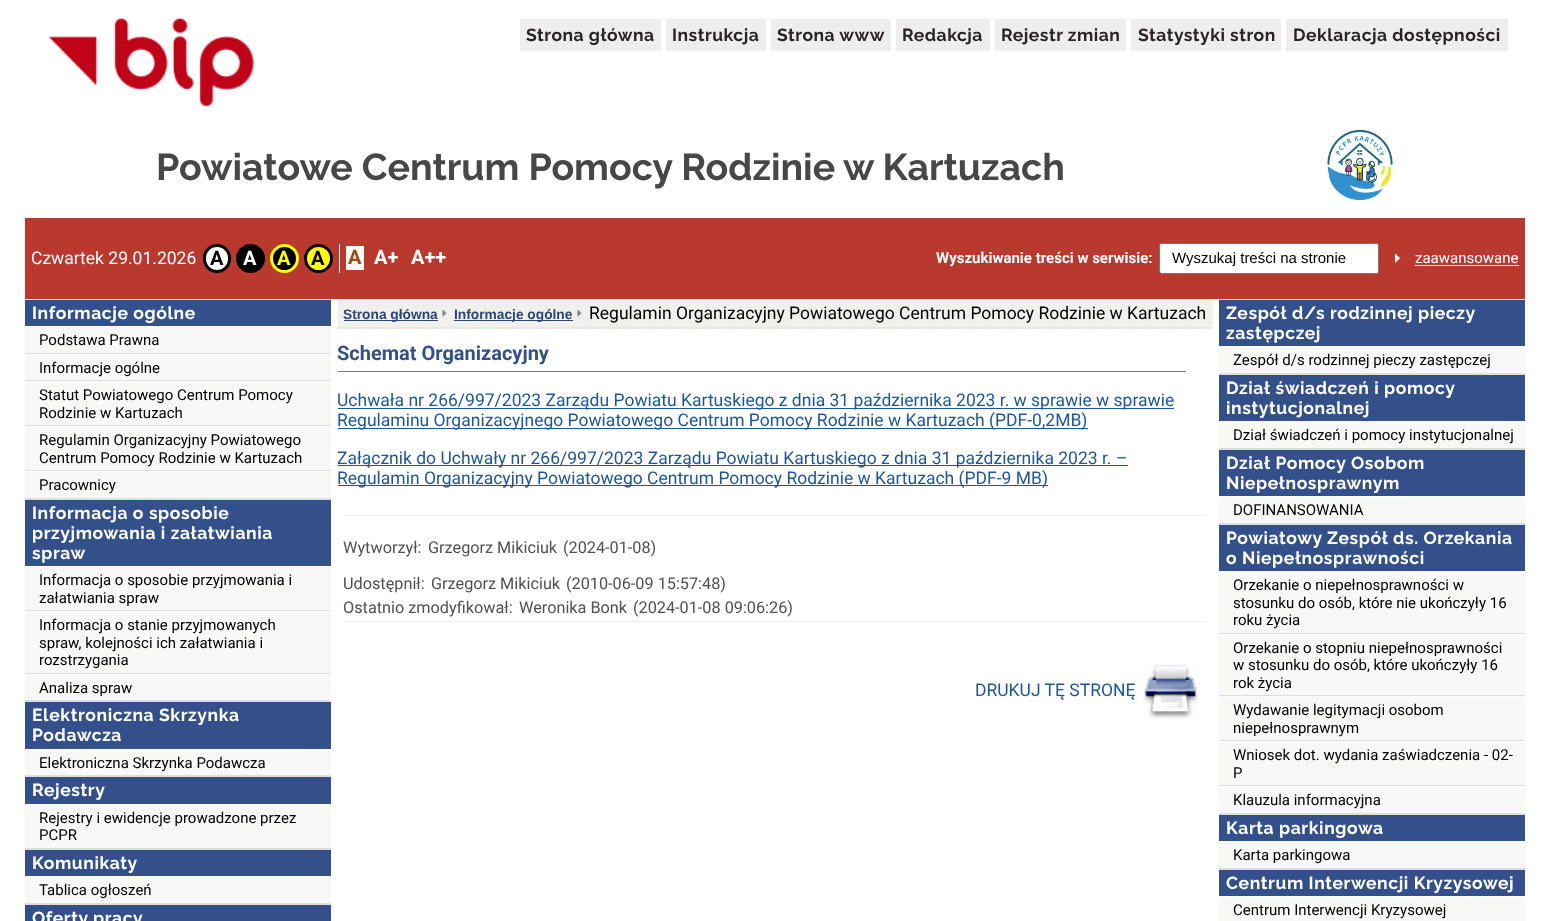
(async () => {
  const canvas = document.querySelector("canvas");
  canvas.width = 1548;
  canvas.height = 921;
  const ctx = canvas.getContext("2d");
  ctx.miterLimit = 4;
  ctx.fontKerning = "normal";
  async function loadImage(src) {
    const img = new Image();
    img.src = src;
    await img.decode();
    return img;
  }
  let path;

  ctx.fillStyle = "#ffffff";
  ctx.fillRect(0, 0, 1548, 921);
  ctx.drawImage(await loadImage("img/1.png"), 48, 17, 206, 90);
  for (const [x, y, w, h, color] of [
    [520, 19, 141, 32, "#eeeeee"],
    [666, 19, 100, 32, "#eeeeee"],
    [771, 19, 120, 32, "#eeeeee"],
    [896, 19, 94, 32, "#eeeeee"],
    [995, 19, 131, 32, "#eeeeee"],
    [1131, 19, 150, 32, "#eeeeee"],
    [1286, 19, 222, 32, "#eeeeee"],
  ]) {
    ctx.fillStyle = color;
    ctx.fillRect(x, y, w, h);
  }
  ctx.drawImage(await loadImage("img/2.png"), 1327, 130, 66, 70);
  ctx.fillStyle = "#b9392e";
  ctx.fillRect(25, 218, 1500, 81);
  ctx.fillStyle = "#ffffff";
  ctx.fillRect(339, 244, 1, 29);
  ctx.beginPath();
  ctx.roundRect(204.5, 245.5, 25, 26, 12.5);
  ctx.fill();
  ctx.strokeStyle = "#000000";
  ctx.lineWidth = 3;
  ctx.stroke();
  ctx.fillStyle = "#000000";
  ctx.beginPath();
  ctx.arc(250.5, 258.5, 13, 0, Math.PI * 2);
  ctx.fill();
  ctx.stroke();
  ctx.beginPath();
  ctx.arc(284.5, 258.5, 13, 0, Math.PI * 2);
  ctx.fill();
  ctx.strokeStyle = "#ffff00";
  ctx.stroke();
  ctx.fillStyle = "#ffff00";
  ctx.beginPath();
  ctx.arc(318.5, 258.5, 13, 0, Math.PI * 2);
  ctx.fill();
  ctx.strokeStyle = "#000000";
  ctx.stroke();
  ctx.fillStyle = "#f8f9f1";
  ctx.fillRect(346, 246, 18, 24);
  ctx.fillStyle = "#ffffff";
  ctx.beginPath();
  ctx.roundRect(1159.5, 243.5, 219, 30, 2);
  ctx.fill();
  ctx.strokeStyle = "#767676";
  ctx.lineWidth = 1;
  ctx.stroke();
  ctx.drawImage(await loadImage("img/3.png"), 1394, 253, 7, 10);
  for (const [x, y, w, h, color] of [
    [1415, 265, 104, 1, "#ffffff"],
    [25, 327, 306, 576, "#f8f8f6"],
    [25, 300, 306, 26, "#34508b"],
    [25, 299, 306, 1, "#dddddc"],
    [25, 353, 306, 1, "#dddddc"],
    [25, 354, 306, 1, "#ffffff"],
    [25, 380, 306, 1, "#dddddc"],
    [25, 381, 306, 1, "#ffffff"],
    [25, 425, 306, 1, "#dddddc"],
    [25, 426, 306, 1, "#ffffff"],
    [25, 470, 306, 1, "#dddddc"],
    [25, 471, 306, 1, "#ffffff"],
    [25, 498, 306, 2, "#dddddc"],
    [25, 500, 306, 66, "#34508b"],
    [25, 566, 306, 1, "#ffffff"],
    [25, 610, 306, 1, "#dddddc"],
    [25, 611, 306, 1, "#ffffff"],
    [25, 673, 306, 1, "#dddddc"],
    [25, 674, 306, 1, "#ffffff"],
    [25, 700, 306, 2, "#dddddc"],
    [25, 702, 306, 47, "#34508b"],
    [25, 749, 306, 1, "#ffffff"],
    [25, 775, 306, 2, "#dddddc"],
    [25, 777, 306, 27, "#34508b"],
    [25, 804, 306, 1, "#ffffff"],
    [25, 848, 306, 2, "#dddddc"],
    [25, 850, 306, 26, "#34508b"],
    [25, 876, 306, 1, "#ffffff"],
    [25, 903, 306, 2, "#dddddc"],
    [25, 905, 306, 16, "#34508b"],
    [338, 299, 875, 30, "#f0f0ed"],
  ]) {
    ctx.fillStyle = color;
    ctx.fillRect(x, y, w, h);
  }
  path = new Path2D("M337.5 328H1212.5");
  ctx.strokeStyle = "#cfcfc6";
  ctx.lineWidth = 1.2;
  ctx.setLineDash([1.25, 1.25]);
  ctx.stroke(path);
  ctx.fillStyle = "#2c4476";
  ctx.fillRect(344, 320, 94, 1);
  ctx.drawImage(await loadImage("img/4.png"), 442, 310, 5, 7);
  ctx.fillRect(454, 320, 119, 1);
  ctx.drawImage(await loadImage("img/4.png"), 577, 310, 5, 7);
  for (const [x, y, w, h, color] of [
    [338, 371, 848, 1, "#777777"],
    [338, 408, 836, 1, "#1d569b"],
    [338, 428, 750, 1, "#1d569b"],
    [338, 465, 790, 1, "#1d569b"],
    [338, 485, 710, 1, "#1d569b"],
    [344, 515, 862, 1, "#ededed"],
    [344, 621, 862, 1, "#ededed"],
  ]) {
    ctx.fillStyle = color;
    ctx.fillRect(x, y, w, h);
  }
  ctx.drawImage(await loadImage("img/5.png"), 1142, 664, 57, 55);
  for (const [x, y, w, h, color] of [
    [1219, 347, 306, 574, "#f8f8f6"],
    [1219, 300, 306, 46, "#34508b"],
    [1219, 299, 306, 1, "#dddddc"],
    [1219, 373, 306, 2, "#dddddc"],
    [1219, 375, 306, 46, "#34508b"],
    [1219, 421, 306, 1, "#ffffff"],
    [1219, 448, 306, 2, "#dddddc"],
    [1219, 450, 306, 46, "#34508b"],
    [1219, 496, 306, 1, "#ffffff"],
    [1219, 523, 306, 2, "#dddddc"],
    [1219, 525, 306, 46, "#34508b"],
    [1219, 571, 306, 1, "#ffffff"],
    [1219, 633, 306, 1, "#dddddc"],
    [1219, 634, 306, 1, "#ffffff"],
    [1219, 695, 306, 1, "#dddddc"],
    [1219, 696, 306, 1, "#ffffff"],
    [1219, 740, 306, 1, "#dddddc"],
    [1219, 741, 306, 1, "#ffffff"],
    [1219, 785, 306, 1, "#dddddc"],
    [1219, 786, 306, 1, "#ffffff"],
    [1219, 813, 306, 2, "#dddddc"],
    [1219, 815, 306, 26, "#34508b"],
    [1219, 841, 306, 1, "#ffffff"],
    [1219, 868, 306, 2, "#dddddc"],
    [1219, 870, 306, 26, "#34508b"],
    [1219, 896, 306, 1, "#ffffff"],
  ]) {
    ctx.fillStyle = color;
    ctx.fillRect(x, y, w, h);
  }
  ctx.letterSpacing = "0.5px";
  ctx.font = "bold 17.5px Raleway";
  ctx.fillStyle = "#282425";
  for (const [text, x, y] of [
    ["Strona główna", 526, 41],
    ["Instrukcja", 672, 41],
    ["Strona www", 777, 41],
    ["Redakcja", 902, 41],
    ["Rejestr zmian", 1001, 41],
    ["Statystyki stron", 1138, 41],
    ["Deklaracja dostępności", 1293, 41],
  ]) {
    ctx.fillText(text, x, y);
  }
  ctx.letterSpacing = "0px";
  ctx.font = "bold 37.5px Raleway";
  ctx.fillStyle = "#474747";
  ctx.fillText("Powiatowe Centrum Pomocy Rodzinie w Kartuzach", 156, 180);
  ctx.font = "17.5px Roboto";
  ctx.fillStyle = "#ffffff";
  ctx.fillText("Czwartek 29.01.2026", 31, 264);
  ctx.font = "bold 20px Roboto";
  ctx.fillStyle = "#000000";
  ctx.fillText("A", 210, 265);
  ctx.fillStyle = "#ffffff";
  ctx.fillText("A", 243, 265);
  ctx.fillStyle = "#ffff00";
  ctx.fillText("A", 277, 265);
  ctx.fillStyle = "#000000";
  ctx.fillText("A", 311, 265);
  ctx.fillStyle = "#9a4d22";
  ctx.fillText("A", 348, 264);
  ctx.fillStyle = "#ffffff";
  ctx.fillText("A+", 374, 264);
  ctx.fillText("A++", 411, 264);
  ctx.font = "bold 15px Roboto";
  ctx.fillText("Wyszukiwanie treści w serwisie:", 936, 263);
  ctx.font = "15px Liberation Sans";
  ctx.fillStyle = "#000000";
  ctx.fillText("Wyszukaj treści na stronie", 1172, 263);
  ctx.font = "15px Roboto";
  ctx.fillStyle = "#ffffff";
  ctx.fillText("zaawansowane", 1415, 263);
  ctx.letterSpacing = "0.6px";
  ctx.font = "bold 17.5px Raleway";
  ctx.fillText("Informacje ogólne", 32, 319);
  ctx.letterSpacing = "0px";
  ctx.font = "15px Roboto";
  ctx.fillStyle = "#000000";
  for (const [text, x, y] of [
    ["Podstawa Prawna", 39, 345],
    ["Informacje ogólne", 39, 373],
    ["Statut Powiatowego Centrum Pomocy", 39, 400],
    ["Rodzinie w Kartuzach", 39, 418],
    ["Regulamin Organizacyjny Powiatowego", 39, 445],
    ["Centrum Pomocy Rodzinie w Kartuzach", 39, 463],
    ["Pracownicy", 39, 490],
  ]) {
    ctx.fillText(text, x, y);
  }
  ctx.letterSpacing = "0.6px";
  ctx.font = "bold 17.5px Raleway";
  ctx.fillStyle = "#ffffff";
  for (const [text, x, y] of [
    ["Informacja o sposobie", 32, 519],
    ["przyjmowania i załatwiania", 32, 539],
    ["spraw", 32, 559],
  ]) {
    ctx.fillText(text, x, y);
  }
  ctx.letterSpacing = "0px";
  ctx.font = "15px Roboto";
  ctx.fillStyle = "#000000";
  for (const [text, x, y] of [
    ["Informacja o sposobie przyjmowania i", 39, 585],
    ["załatwiania spraw", 39, 603],
    ["Informacja o stanie przyjmowanych", 39, 630],
    ["spraw, kolejności ich załatwiania i", 39, 648],
    ["rozstrzygania", 39, 665],
    ["Analiza spraw", 39, 693],
  ]) {
    ctx.fillText(text, x, y);
  }
  ctx.letterSpacing = "0.6px";
  ctx.font = "bold 17.5px Raleway";
  ctx.fillStyle = "#ffffff";
  ctx.fillText("Elektroniczna Skrzynka", 32, 721);
  ctx.fillText("Podawcza", 32, 741);
  ctx.letterSpacing = "0px";
  ctx.font = "15px Roboto";
  ctx.fillStyle = "#000000";
  ctx.fillText("Elektroniczna Skrzynka Podawcza", 39, 768);
  ctx.letterSpacing = "0.6px";
  ctx.font = "bold 17.5px Raleway";
  ctx.fillStyle = "#ffffff";
  ctx.fillText("Rejestry", 32, 796);
  ctx.letterSpacing = "0px";
  ctx.font = "15px Roboto";
  ctx.fillStyle = "#000000";
  ctx.fillText("Rejestry i ewidencje prowadzone przez", 39, 823);
  ctx.fillText("PCPR", 39, 840);
  ctx.letterSpacing = "0.6px";
  ctx.font = "bold 17.5px Raleway";
  ctx.fillStyle = "#ffffff";
  ctx.fillText("Komunikaty", 32, 869);
  ctx.letterSpacing = "0px";
  ctx.font = "15px Roboto";
  ctx.fillStyle = "#000000";
  ctx.fillText("Tablica ogłoszeń", 39, 895);
  ctx.letterSpacing = "0.6px";
  ctx.font = "bold 17.5px Raleway";
  ctx.fillStyle = "#ffffff";
  ctx.fillText("Oferty pracy", 32, 924);
  ctx.letterSpacing = "0px";
  ctx.font = "bold 13.75px Liberation Sans";
  ctx.fillStyle = "#2c4476";
  ctx.fillText("Strona główna", 343, 319);
  ctx.fillText("Informacje ogólne", 454, 319);
  ctx.font = "17.5px Roboto";
  ctx.fillStyle = "#000000";
  ctx.fillText("Regulamin Organizacyjny Powiatowego Centrum Pomocy Rodzinie w Kartuzach", 589, 319);
  ctx.font = "bold 20px Roboto";
  ctx.fillStyle = "#34508b";
  ctx.fillText("Schemat Organizacyjny", 337, 360);
  ctx.font = "17.5px Roboto";
  ctx.fillStyle = "#1d569b";
  for (const [text, x, y] of [
    ["Uchwała nr 266/997/2023 Zarządu Powiatu Kartuskiego z dnia 31 października 2023 r. w sprawie w sprawie", 337, 406],
    ["Regulaminu Organizacyjnego Powiatowego Centrum Pomocy Rodzinie w Kartuzach (PDF-0,2MB)", 337, 426],
    ["Załącznik do Uchwały nr 266/997/2023 Zarządu Powiatu Kartuskiego z dnia 31 października 2023 r. –", 337, 464],
    ["Regulamin Organizacyjny Powiatowego Centrum Pomocy Rodzinie w Kartuzach (PDF-9 MB)", 337, 484],
  ]) {
    ctx.fillText(text, x, y);
  }
  ctx.font = "16.25px Roboto";
  ctx.fillStyle = "#515151";
  for (const [text, x, y] of [
    ["Wytworzył:", 343, 553],
    ["Grzegorz Mikiciuk", 428, 553],
    ["(2024-01-08)", 563, 553],
    ["Udostępnił:", 343, 589],
    ["Grzegorz Mikiciuk", 431, 589],
    ["(2010-06-09 15:57:48)", 566, 589],
    ["Ostatnio zmodyfikował:", 343, 613],
    ["Weronika Bonk", 519, 613],
    ["(2024-01-08 09:06:26)", 633, 613],
  ]) {
    ctx.fillText(text, x, y);
  }
  ctx.font = "17.5px Roboto";
  ctx.fillStyle = "#1d569b";
  ctx.fillText("DRUKUJ TĘ STRONĘ", 975, 696);
  ctx.letterSpacing = "0.6px";
  ctx.font = "bold 17.5px Raleway";
  ctx.fillStyle = "#ffffff";
  ctx.fillText("Zespół d/s rodzinnej pieczy", 1226, 319);
  ctx.fillText("zastępczej", 1226, 339);
  ctx.letterSpacing = "0px";
  ctx.font = "15px Roboto";
  ctx.fillStyle = "#000000";
  ctx.fillText("Zespół d/s rodzinnej pieczy zastępczej", 1233, 365);
  ctx.letterSpacing = "0.6px";
  ctx.font = "bold 17.5px Raleway";
  ctx.fillStyle = "#ffffff";
  ctx.fillText("Dział świadczeń i pomocy", 1226, 394);
  ctx.fillText("instytucjonalnej", 1226, 414);
  ctx.letterSpacing = "0px";
  ctx.font = "15px Roboto";
  ctx.fillStyle = "#000000";
  ctx.fillText("Dział świadczeń i pomocy instytucjonalnej", 1233, 440);
  ctx.letterSpacing = "0.6px";
  ctx.font = "bold 17.5px Raleway";
  ctx.fillStyle = "#ffffff";
  ctx.fillText("Dział Pomocy Osobom", 1226, 469);
  ctx.fillText("Niepełnosprawnym", 1226, 489);
  ctx.letterSpacing = "0px";
  ctx.font = "15px Roboto";
  ctx.fillStyle = "#000000";
  ctx.fillText("DOFINANSOWANIA", 1233, 515);
  ctx.letterSpacing = "0.6px";
  ctx.font = "bold 17.5px Raleway";
  ctx.fillStyle = "#ffffff";
  ctx.fillText("Powiatowy Zespół ds. Orzekania", 1226, 544);
  ctx.fillText("o Niepełnosprawności", 1226, 564);
  ctx.letterSpacing = "0px";
  ctx.font = "15px Roboto";
  ctx.fillStyle = "#000000";
  for (const [text, x, y] of [
    ["Orzekanie o niepełnosprawności w", 1233, 590],
    ["stosunku do osób, które nie ukończyły 16", 1233, 608],
    ["roku życia", 1233, 625],
    ["Orzekanie o stopniu niepełnosprawności", 1233, 653],
    ["w stosunku do osób, które ukończyły 16", 1233, 670],
    ["rok życia", 1233, 688],
    ["Wydawanie legitymacji osobom", 1233, 715],
    ["niepełnosprawnym", 1233, 733],
    ["Wniosek dot. wydania zaświadczenia - 02-", 1233, 760],
    ["P", 1233, 778],
    ["Klauzula informacyjna", 1233, 805],
  ]) {
    ctx.fillText(text, x, y);
  }
  ctx.letterSpacing = "0.6px";
  ctx.font = "bold 17.5px Raleway";
  ctx.fillStyle = "#ffffff";
  ctx.fillText("Karta parkingowa", 1226, 834);
  ctx.letterSpacing = "0px";
  ctx.font = "15px Roboto";
  ctx.fillStyle = "#000000";
  ctx.fillText("Karta parkingowa", 1233, 860);
  ctx.letterSpacing = "0.6px";
  ctx.font = "bold 17.5px Raleway";
  ctx.fillStyle = "#ffffff";
  ctx.fillText("Centrum Interwencji Kryzysowej", 1226, 889);
  ctx.letterSpacing = "0px";
  ctx.font = "15px Roboto";
  ctx.fillStyle = "#000000";
  ctx.fillText("Centrum Interwencji Kryzysowej", 1233, 915);
})();
